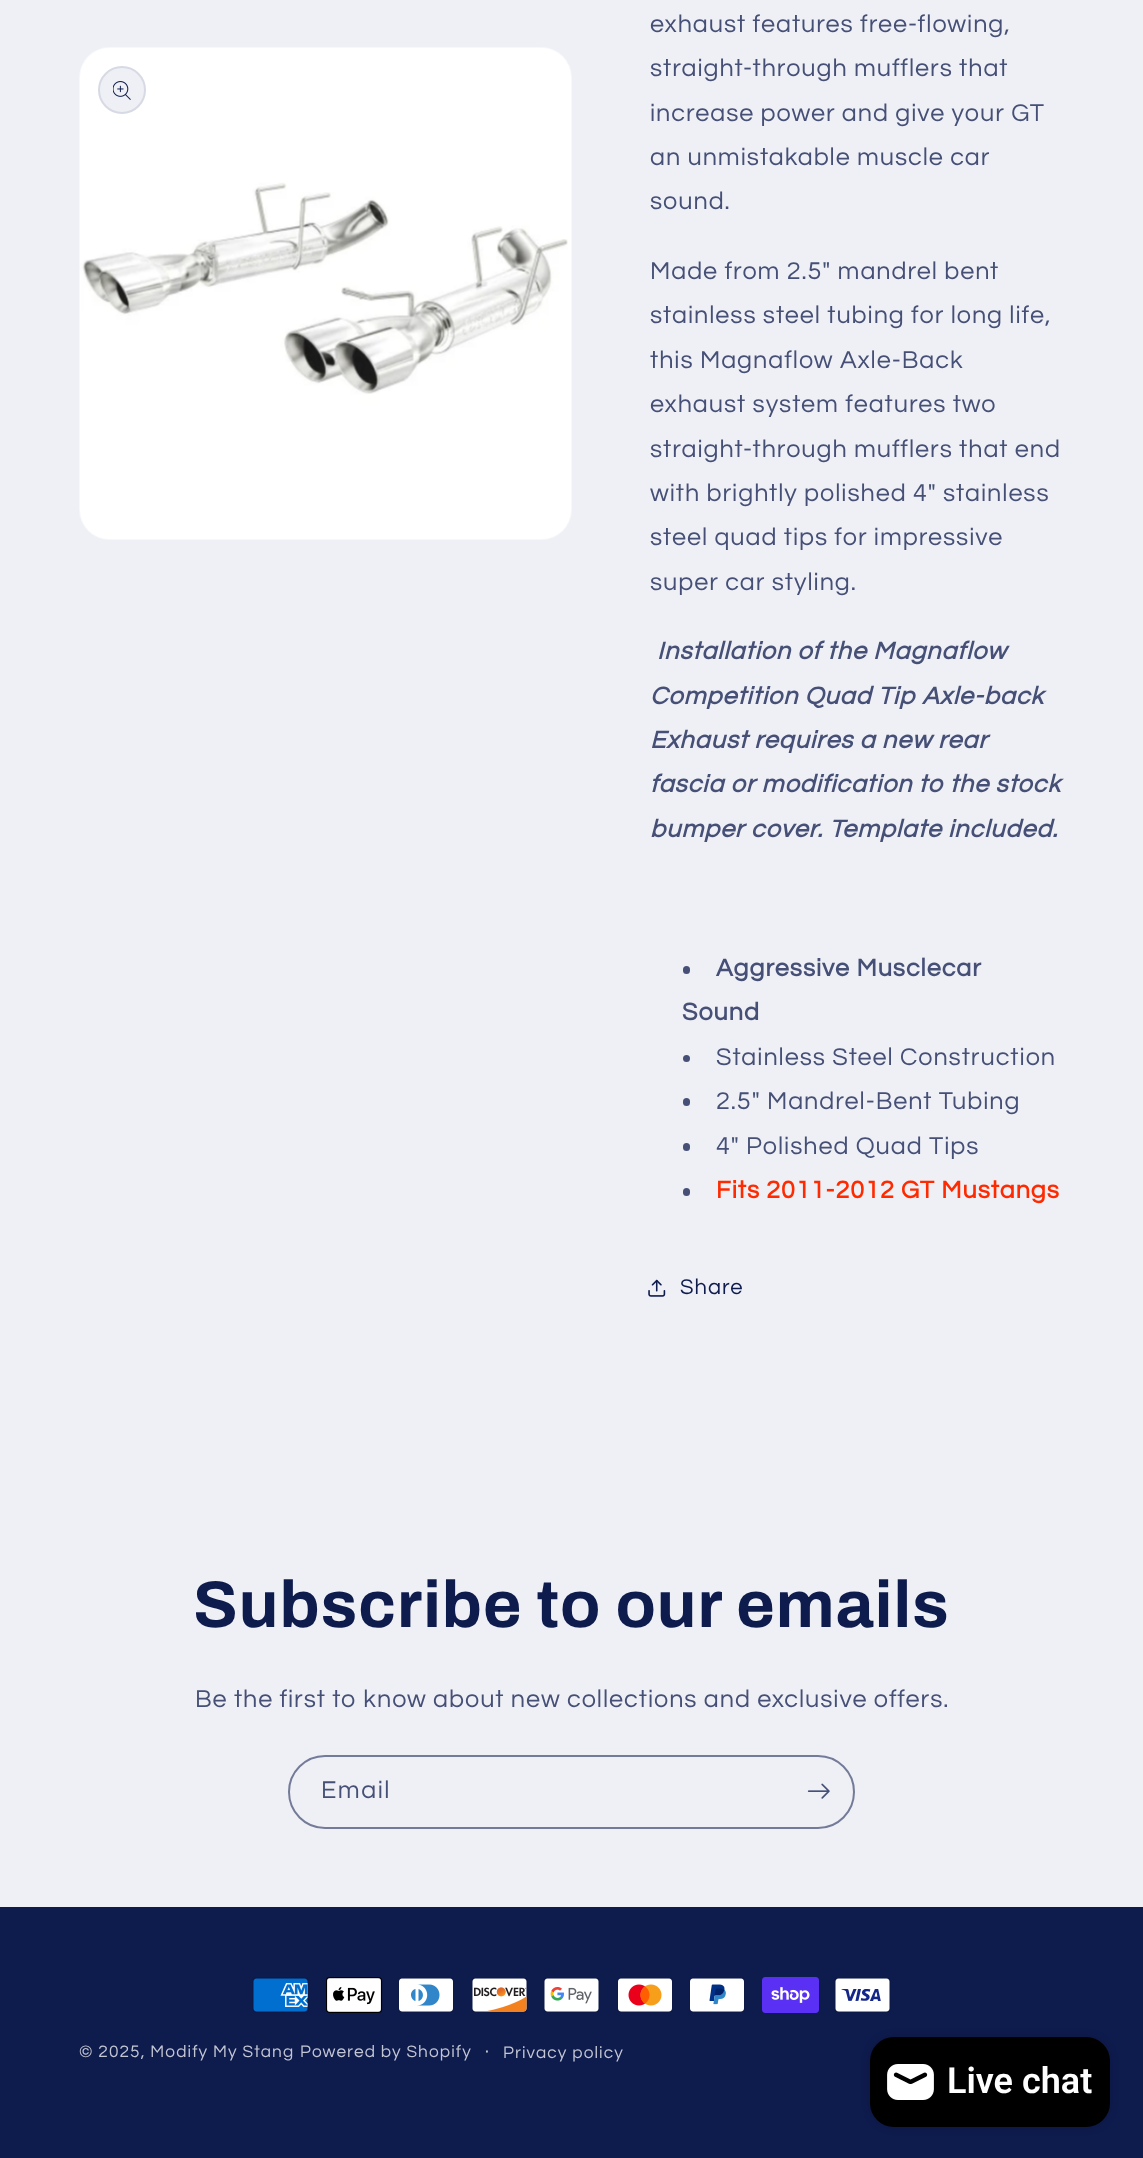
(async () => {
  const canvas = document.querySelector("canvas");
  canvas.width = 1143;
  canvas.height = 2158;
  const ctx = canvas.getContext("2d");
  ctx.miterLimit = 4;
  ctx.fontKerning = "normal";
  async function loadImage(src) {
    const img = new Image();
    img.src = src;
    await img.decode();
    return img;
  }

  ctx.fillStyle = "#eff0f5";
  ctx.fillRect(0, 0, 1143, 2158);
  ctx.drawImage(await loadImage("img/1.png"), 79, 47, 493, 493);
  ctx.beginPath();
  ctx.arc(122, 90, 24, 0, Math.PI * 2);
  ctx.fill();
  ctx.beginPath();
  ctx.arc(122, 90, 23, 0, Math.PI * 2);
  ctx.strokeStyle = "rgba(14, 27, 77, 0.1)";
  ctx.lineWidth = 2;
  ctx.stroke();
  ctx.drawImage(await loadImage("img/2.png"), 113, 81, 18, 19);
  ctx.fillStyle = "#465077";
  ctx.beginPath();
  ctx.roundRect(683, 966, 7, 8, 3.5);
  ctx.fill();
  ctx.beginPath();
  ctx.arc(686.5, 1058.5, 3.5, 0, Math.PI * 2);
  ctx.fill();
  ctx.beginPath();
  ctx.roundRect(683, 1098, 7, 8, 3.5);
  ctx.fill();
  ctx.beginPath();
  ctx.roundRect(683, 1143, 7, 8, 3.5);
  ctx.fill();
  ctx.beginPath();
  ctx.roundRect(683, 1188, 7, 8, 3.5);
  ctx.fill();
  ctx.drawImage(await loadImage("img/3.png"), 648, 1279, 18, 18);
  ctx.beginPath();
  ctx.roundRect(289, 1756, 565, 72, 36);
  ctx.strokeStyle = "#737b99";
  ctx.stroke();
  ctx.drawImage(await loadImage("img/4.png"), 807, 1783, 23, 16);
  ctx.fillStyle = "#0e1b4d";
  ctx.fillRect(0, 1907, 1143, 251);
  ctx.drawImage(await loadImage("img/5.png"), 252, 1977, 57, 36);
  ctx.drawImage(await loadImage("img/6.png"), 326, 1977, 57, 36);
  ctx.drawImage(await loadImage("img/7.png"), 398, 1977, 56, 36);
  ctx.drawImage(await loadImage("img/8.png"), 471, 1977, 57, 36);
  ctx.drawImage(await loadImage("img/9.png"), 543, 1977, 57, 36);
  ctx.drawImage(await loadImage("img/10.png"), 617, 1977, 56, 36);
  ctx.drawImage(await loadImage("img/11.png"), 689, 1977, 56, 36);
  ctx.drawImage(await loadImage("img/12.png"), 762, 1977, 57, 36);
  ctx.drawImage(await loadImage("img/13.png"), 834, 1977, 57, 36);
  ctx.fillStyle = "rgba(0, 0, 0, 0.15)";
  ctx.filter = "blur(4px)";
  ctx.beginPath();
  ctx.roundRect(870, 2037, 240, 90, 24);
  ctx.fill();
  ctx.filter = "none";
  ctx.fillStyle = "#000000";
  ctx.beginPath();
  ctx.roundRect(870, 2037, 240, 90, 24);
  ctx.fill();
  ctx.drawImage(await loadImage("img/14.png"), 887, 2064, 47, 36);
  ctx.letterSpacing = "0.95px";
  ctx.font = "25.2px Questrial";
  ctx.fillStyle = "#465077";
  for (const [text, x, y] of [
    ["exhaust features free-flowing,", 650, 32],
    ["straight-through mufflers that", 650, 76],
    ["increase power and give your GT", 650, 121],
    ["an unmistakable muscle car", 650, 165],
    ["sound.", 650, 209],
    ["Made from 2.5\" mandrel bent", 650, 279],
    ["stainless steel tubing for long life,", 650, 323],
    ["this Magnaflow Axle-Back", 650, 368],
    ["exhaust system features two", 650, 412],
    ["straight-through mufflers that end", 650, 457],
    ["with brightly polished 4\" stainless", 650, 501],
    ["steel quad tips for impressive", 650, 545],
    ["super car styling.", 650, 590],
  ]) {
    ctx.fillText(text, x, y);
  }
  ctx.font = "italic bold 25.2px Questrial";
  for (const [text, x, y] of [
    ["Installation of the Magnaflow", 657, 659],
    ["Competition Quad Tip Axle-back", 650, 704],
    ["Exhaust requires a new rear", 650, 748],
    ["fascia or modification to the stock", 650, 792],
    ["bumper cover. Template included.", 650, 837],
  ]) {
    ctx.fillText(text, x, y);
  }
  ctx.font = "bold 25.2px Questrial";
  ctx.fillText("Aggressive Musclecar", 716, 976);
  ctx.fillText("Sound", 682, 1020);
  ctx.font = "25.2px Questrial";
  for (const [text, x, y] of [
    ["Stainless Steel Construction", 716, 1065],
    ["2.5\" Mandrel-Bent Tubing", 716, 1109],
    ["4\" Polished Quad Tips", 716, 1154],
  ]) {
    ctx.fillText(text, x, y);
  }
  ctx.font = "bold 25.2px Questrial";
  ctx.fillStyle = "#ff2a00";
  ctx.fillText("Fits 2011-2012 GT Mustangs", 716, 1198);
  ctx.font = "22px Questrial";
  ctx.fillStyle = "#0e1b4d";
  ctx.fillText("Share", 680, 1294);
  ctx.letterSpacing = "1px";
  ctx.font = "bold 66px Archivo";
  ctx.fillText("Subscribe to our emails", 193, 1627);
  ctx.letterSpacing = "0.95px";
  ctx.font = "25.2px Questrial";
  ctx.fillStyle = "#465077";
  ctx.fillText("Be the first to know about new collections and exclusive offers.", 195, 1707);
  ctx.letterSpacing = "1.5px";
  ctx.fillText("Email", 321, 1798);
  ctx.letterSpacing = "1.1px";
  ctx.font = "17.25px Questrial";
  ctx.fillStyle = "#c3c6d3";
  ctx.fillText("© 2025, Modify My Stang", 79, 2057);
  ctx.fillText("Powered by Shopify", 300, 2057);
  ctx.font = "19px Questrial";
  ctx.fillText("·", 485, 2057);
  ctx.font = "17.25px Questrial";
  ctx.fillText("Privacy policy", 503, 2058);
  ctx.letterSpacing = "0px";
  ctx.font = "600 36px Roboto";
  ctx.fillStyle = "#ffffff";
  ctx.fillText("Live chat", 947, 2093);
})();
